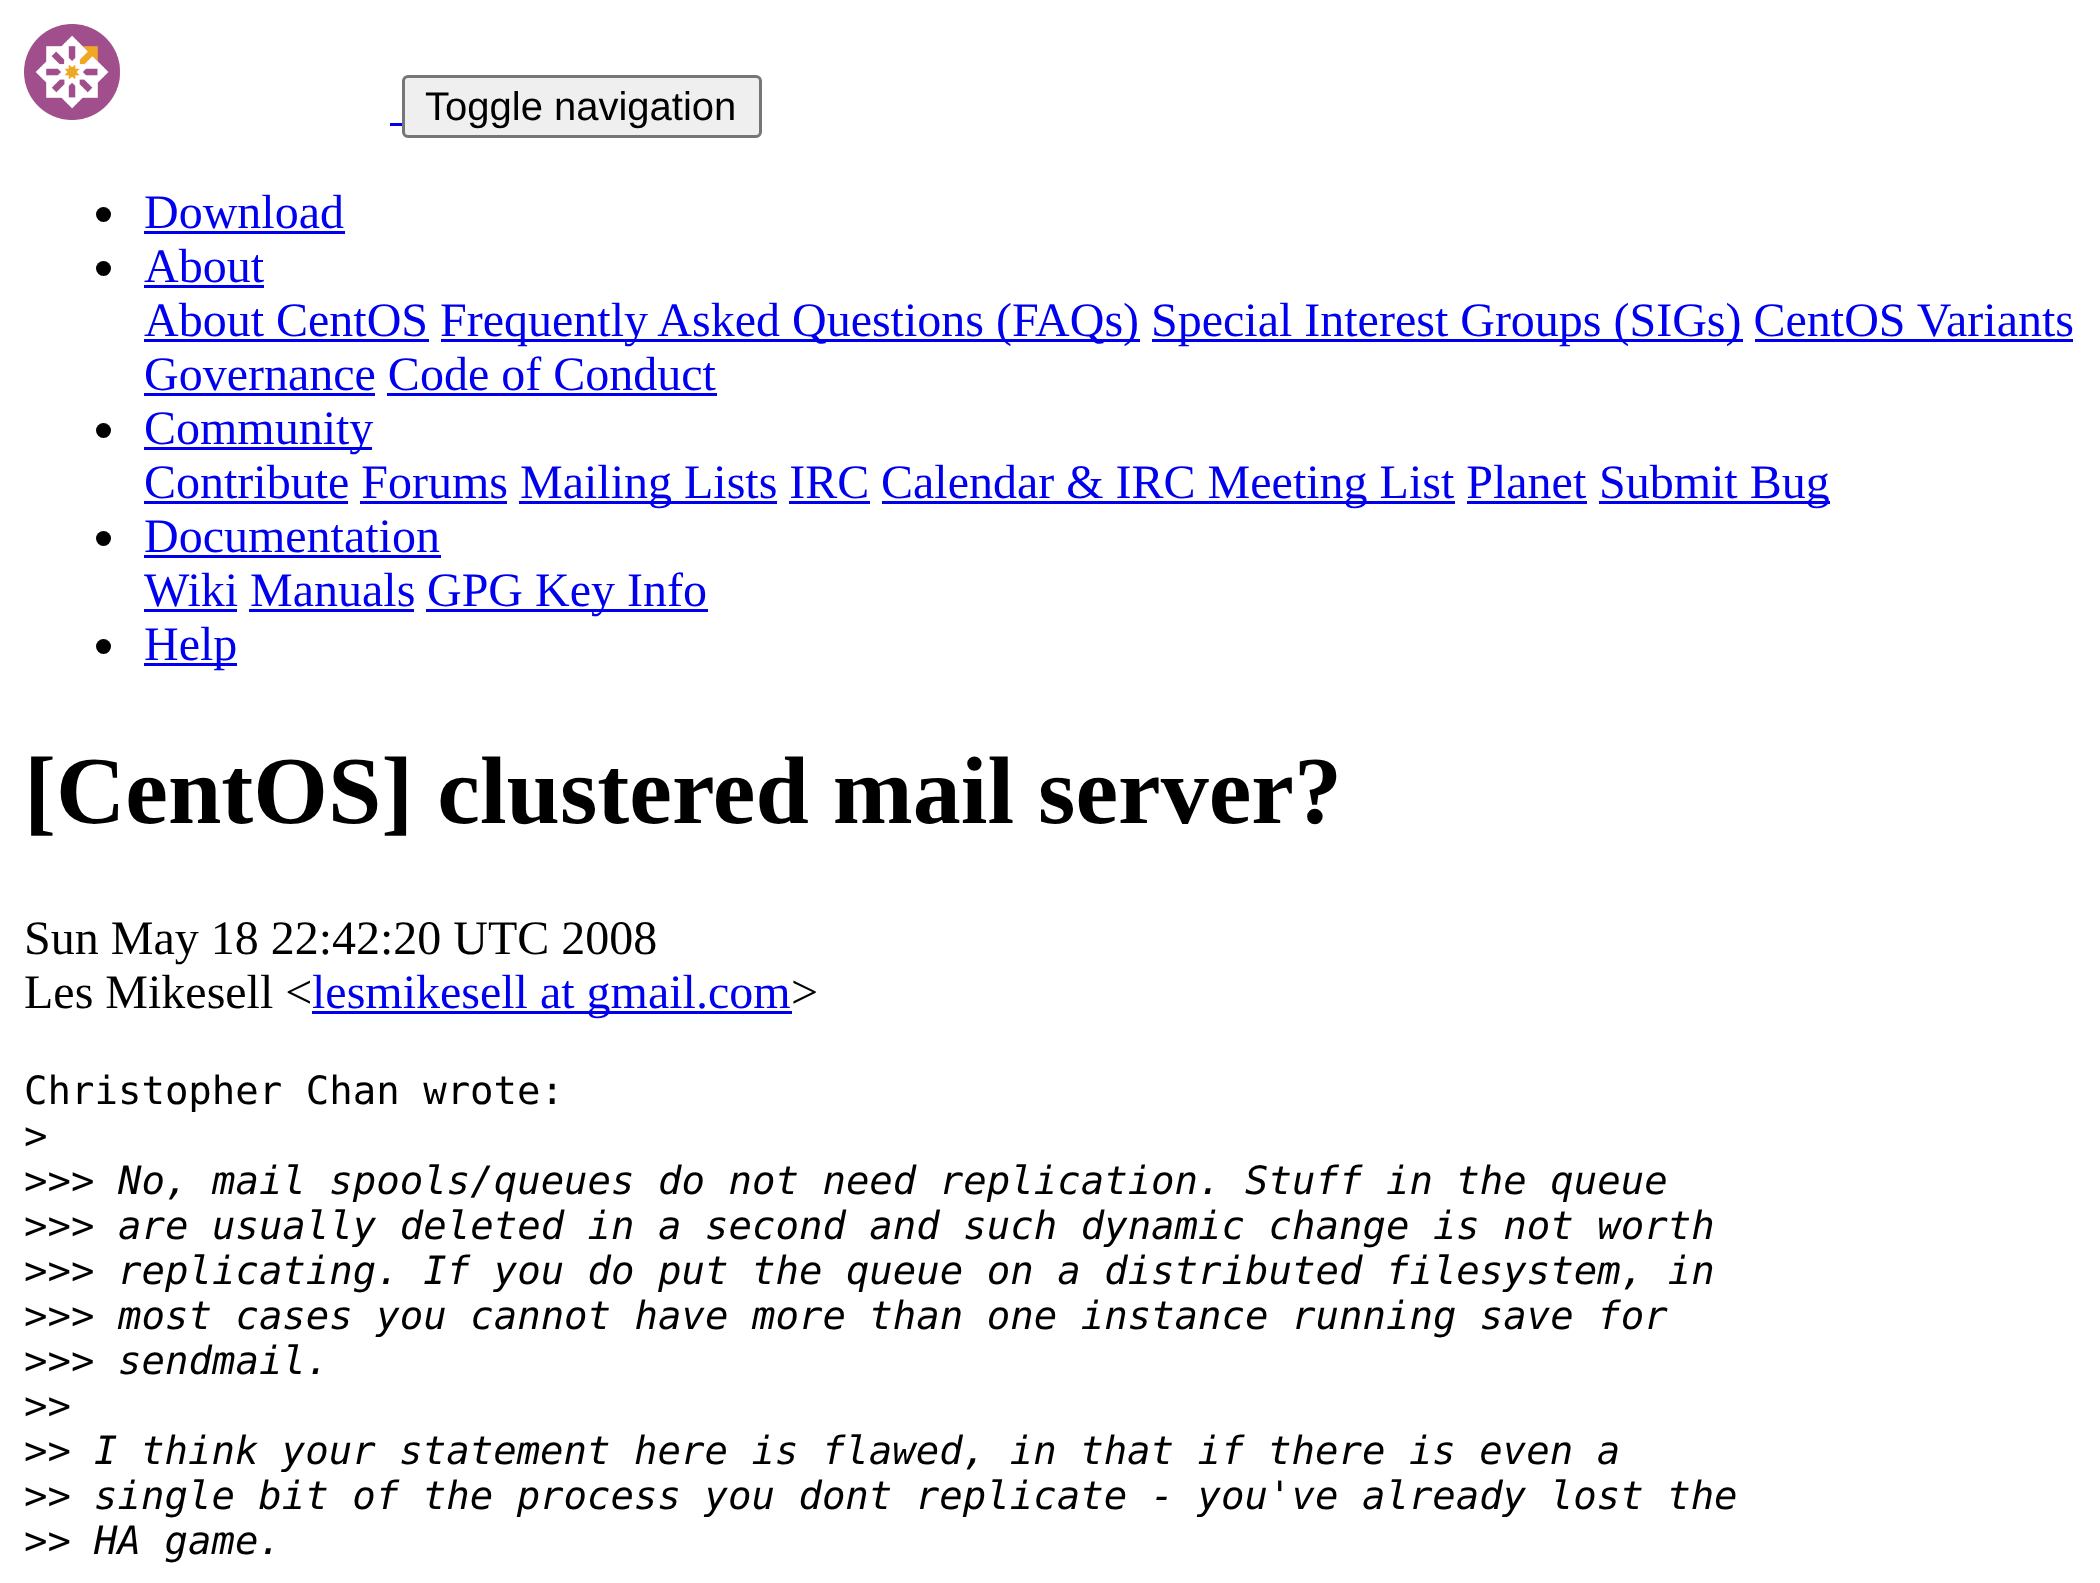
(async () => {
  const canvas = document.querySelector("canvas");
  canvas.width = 2100;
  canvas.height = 1583;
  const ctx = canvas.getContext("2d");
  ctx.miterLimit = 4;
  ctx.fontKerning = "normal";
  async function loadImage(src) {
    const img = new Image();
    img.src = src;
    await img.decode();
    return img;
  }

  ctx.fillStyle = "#ffffff";
  ctx.fillRect(0, 0, 2100, 1583);
  ctx.drawImage(await loadImage("img/1.png"), 24, 24, 96, 96);
  ctx.fillStyle = "#0000ee";
  ctx.fillRect(390, 123, 12, 3);
  ctx.fillStyle = "#efefef";
  ctx.beginPath();
  ctx.roundRect(403.5, 76.5, 357, 60, 4.5);
  ctx.fill();
  ctx.strokeStyle = "#767676";
  ctx.lineWidth = 3;
  ctx.stroke();
  ctx.fillStyle = "#000000";
  ctx.beginPath();
  ctx.arc(103.5, 214.5, 7.5, 0, Math.PI * 2);
  ctx.fill();
  ctx.fillStyle = "#0000ee";
  ctx.fillRect(144, 231, 201, 3);
  ctx.fillStyle = "#000000";
  ctx.beginPath();
  ctx.arc(103.5, 268.5, 7.5, 0, Math.PI * 2);
  ctx.fill();
  for (const [x, y, w, h, color] of [
    [144, 285, 120, 3, "#0000ee"],
    [144, 339, 285, 3, "#0000ee"],
    [441, 339, 699, 3, "#0000ee"],
    [1152, 339, 591, 3, "#0000ee"],
    [1755, 339, 318, 3, "#0000ee"],
    [144, 393, 231, 3, "#0000ee"],
    [387, 393, 330, 3, "#0000ee"],
  ]) {
    ctx.fillStyle = color;
    ctx.fillRect(x, y, w, h);
  }
  ctx.fillStyle = "#000000";
  ctx.beginPath();
  ctx.arc(103.5, 430.5, 7.5, 0, Math.PI * 2);
  ctx.fill();
  for (const [x, y, w, h, color] of [
    [144, 447, 228, 3, "#0000ee"],
    [144, 501, 204, 3, "#0000ee"],
    [519, 501, 258, 3, "#0000ee"],
    [882, 501, 573, 3, "#0000ee"],
    [1599, 501, 231, 3, "#0000ee"],
    [360, 501, 147, 3, "#0000ee"],
    [789, 501, 81, 3, "#0000ee"],
    [1467, 501, 120, 3, "#0000ee"],
  ]) {
    ctx.fillStyle = color;
    ctx.fillRect(x, y, w, h);
  }
  ctx.fillStyle = "#000000";
  ctx.beginPath();
  ctx.arc(103.5, 538.5, 7.5, 0, Math.PI * 2);
  ctx.fill();
  for (const [x, y, w, h, color] of [
    [144, 555, 297, 3, "#0000ee"],
    [144, 609, 93, 3, "#0000ee"],
    [426, 609, 282, 3, "#0000ee"],
    [249, 609, 165, 3, "#0000ee"],
  ]) {
    ctx.fillStyle = color;
    ctx.fillRect(x, y, w, h);
  }
  ctx.fillStyle = "#000000";
  ctx.beginPath();
  ctx.arc(103.5, 646.5, 7.5, 0, Math.PI * 2);
  ctx.fill();
  ctx.fillStyle = "#0000ee";
  ctx.fillRect(144, 663, 93, 3);
  ctx.fillRect(312, 1011, 480, 3);
  ctx.font = "40px Liberation Sans";
  ctx.fillStyle = "#000000";
  ctx.fillText("Toggle navigation", 425, 120);
  ctx.font = "48px Liberation Serif";
  ctx.fillStyle = "#0000ee";
  for (const [text, x, y] of [
    ["Download", 144, 228],
    ["About", 144, 282],
    ["About CentOS", 144, 336],
    ["Frequently Asked Questions (FAQs)", 440, 336],
    ["Special Interest Groups (SIGs) CentOS Variants", 1151, 336],
    ["Governance Code of Conduct", 144, 390],
    ["Community", 144, 444],
    ["Contribute Forums", 144, 498],
    ["Mailing Lists IRC", 520, 498],
    ["Calendar & IRC Meeting List Planet", 881, 498],
    ["Submit Bug", 1599, 498],
    ["Documentation", 144, 552],
    ["Wiki Manuals", 144, 606],
    ["GPG Key Info", 427, 606],
    ["Help", 144, 660],
  ]) {
    ctx.fillText(text, x, y);
  }
  ctx.font = "bold 96px Liberation Serif";
  ctx.fillStyle = "#000000";
  ctx.fillText("[CentOS] clustered mail server?", 24, 823);
  ctx.font = "48px Liberation Serif";
  ctx.fillText("Sun May 18 22:42:20 UTC 2008", 24, 954);
  ctx.fillText("Les Mikesell <", 24, 1008);
  ctx.fillStyle = "#0000ee";
  ctx.fillText("lesmikesell at gmail.com", 312, 1008);
  ctx.fillStyle = "#000000";
  ctx.fillText(">", 791, 1008);
  ctx.font = "39px DejaVu Sans Mono";
  for (const [text, x, y] of [
    ["Christopher Chan wrote:", 24, 1104],
    [">", 24, 1149],
    [">>>", 24, 1194],
  ]) {
    ctx.fillText(text, x, y);
  }
  ctx.font = "italic 39px DejaVu Sans Mono";
  ctx.fillText("No, mail spools/queues do not need replication. Stuff in the queue", 118, 1194);
  ctx.font = "39px DejaVu Sans Mono";
  ctx.fillText(">>>", 24, 1239);
  ctx.font = "italic 39px DejaVu Sans Mono";
  ctx.fillText("are usually deleted in a second and such dynamic change is not worth", 118, 1239);
  ctx.font = "39px DejaVu Sans Mono";
  ctx.fillText(">>>", 24, 1284);
  ctx.font = "italic 39px DejaVu Sans Mono";
  ctx.fillText("replicating. If you do put the queue on a distributed filesystem, in", 118, 1284);
  ctx.font = "39px DejaVu Sans Mono";
  ctx.fillText(">>>", 24, 1329);
  ctx.font = "italic 39px DejaVu Sans Mono";
  ctx.fillText("most cases you cannot have more than one instance running save for", 118, 1329);
  ctx.font = "39px DejaVu Sans Mono";
  ctx.fillText(">>>", 24, 1374);
  ctx.font = "italic 39px DejaVu Sans Mono";
  ctx.fillText("sendmail.", 118, 1374);
  ctx.font = "39px DejaVu Sans Mono";
  ctx.fillText(">>", 24, 1419);
  ctx.fillText(">>", 24, 1464);
  ctx.font = "italic 39px DejaVu Sans Mono";
  ctx.fillText("I think your statement here is flawed, in that if there is even a", 94, 1464);
  ctx.font = "39px DejaVu Sans Mono";
  ctx.fillText(">>", 24, 1509);
  ctx.font = "italic 39px DejaVu Sans Mono";
  ctx.fillText("single bit of the process you dont replicate - you've already lost the", 94, 1509);
  ctx.font = "39px DejaVu Sans Mono";
  ctx.fillText(">>", 24, 1554);
  ctx.font = "italic 39px DejaVu Sans Mono";
  ctx.fillText("HA game.", 94, 1554);
})();
